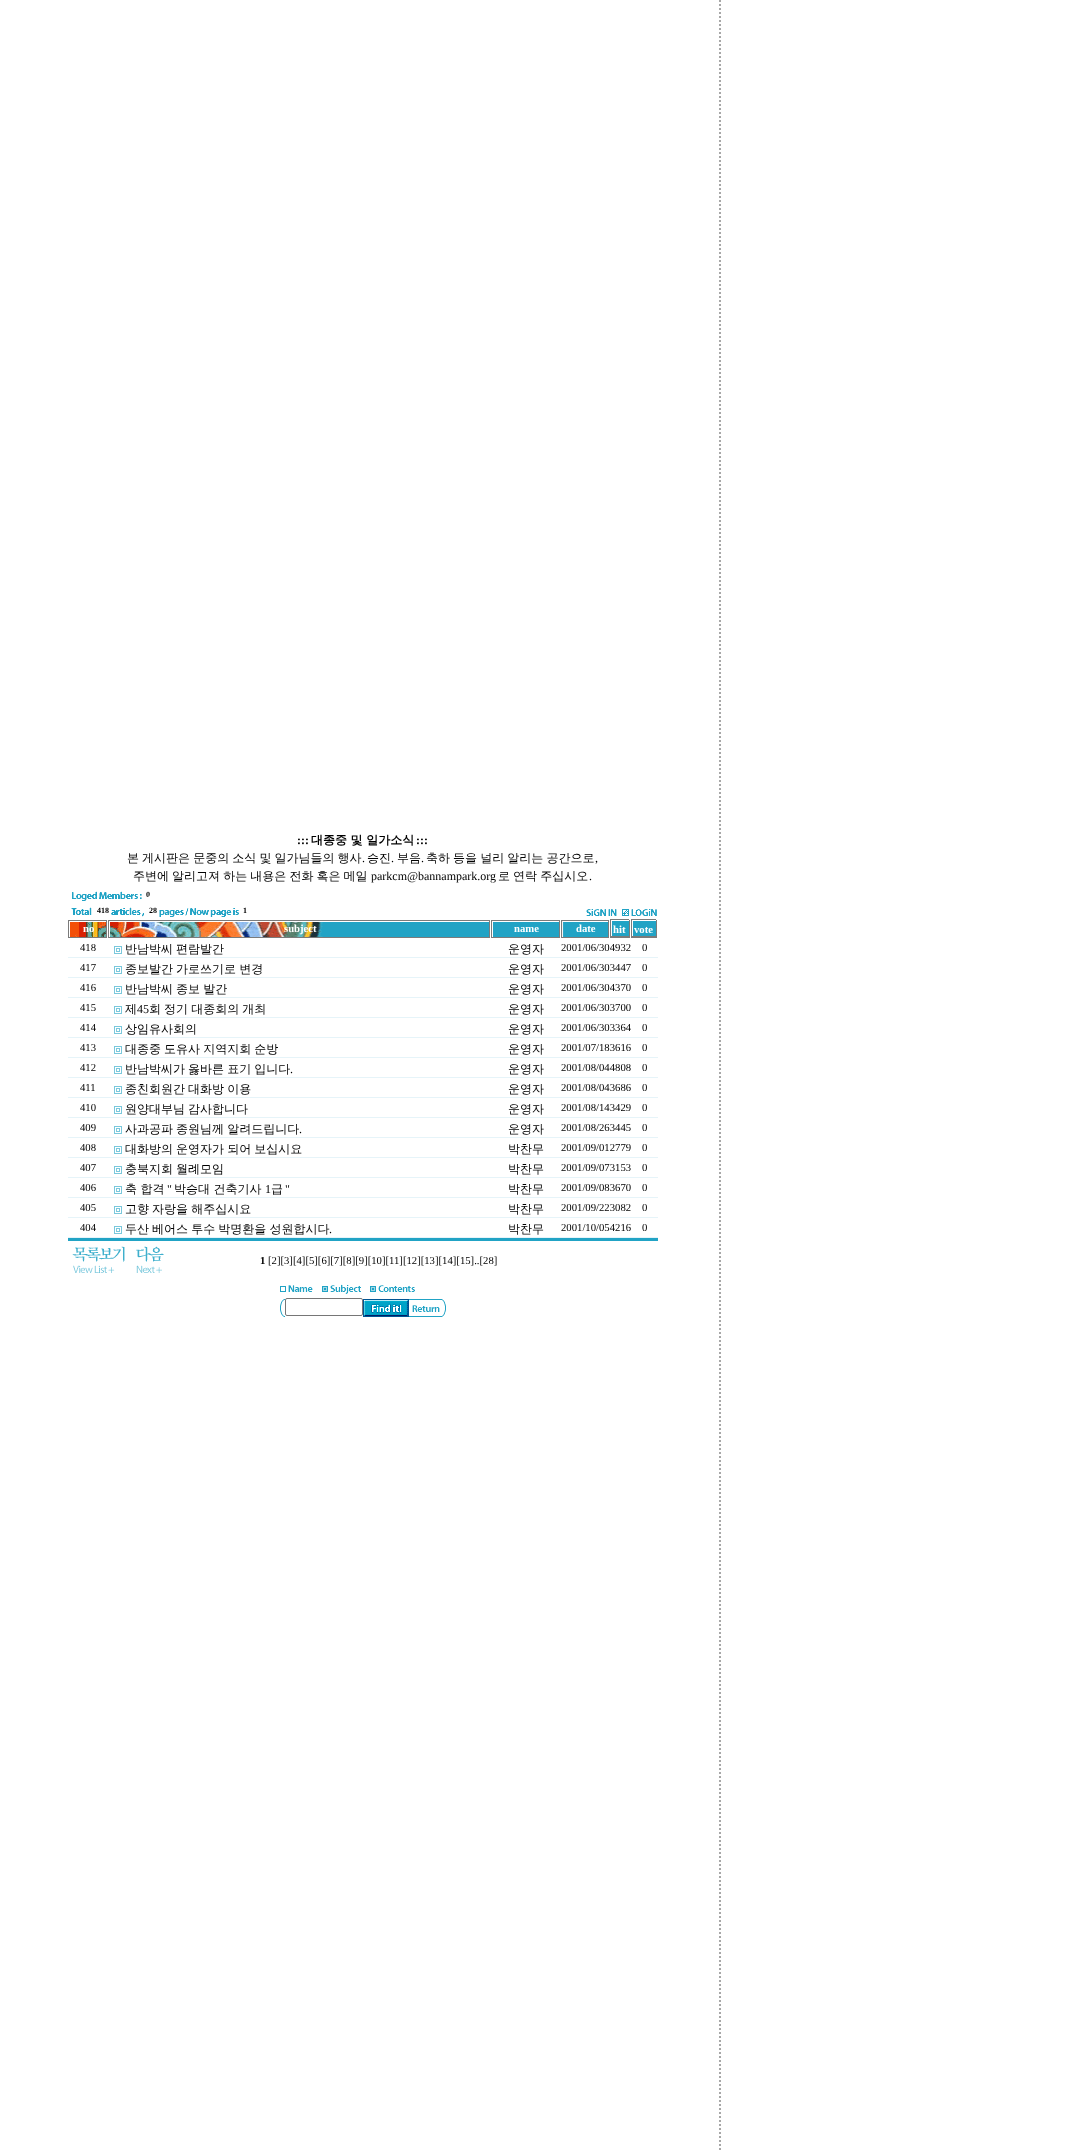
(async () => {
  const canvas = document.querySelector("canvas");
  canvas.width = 1075;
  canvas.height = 2150;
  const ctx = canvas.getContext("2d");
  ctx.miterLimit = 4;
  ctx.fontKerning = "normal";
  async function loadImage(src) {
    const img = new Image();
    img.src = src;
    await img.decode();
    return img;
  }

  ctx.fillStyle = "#ffffff";
  ctx.fillRect(0, 0, 1075, 2150);
  ctx.drawImage(await loadImage("img/1.png"), 719, 0, 2, 2150);
  ctx.drawImage(await loadImage("img/2.png"), 72, 891, 70, 10);
  ctx.drawImage(await loadImage("img/3.png"), 71, 907, 21, 8);
  ctx.drawImage(await loadImage("img/4.png"), 111, 907, 33, 10);
  ctx.drawImage(await loadImage("img/5.png"), 159, 908, 80, 9);
  ctx.drawImage(await loadImage("img/6.png"), 586, 909, 31, 7);
  ctx.drawImage(await loadImage("img/7.png"), 622, 909, 35, 7);
  ctx.drawImage(await loadImage("img/8.png"), 68, 920, 39, 18);
  ctx.drawImage(await loadImage("img/9.png"), 108, 920, 381, 18);
  ctx.fillStyle = "#7b7b7b";
  ctx.fillRect(489, 920, 1, 18);
  ctx.drawImage(await loadImage("img/10.png"), 491, 920, 68, 18);
  ctx.fillRect(559, 920, 1, 18);
  ctx.drawImage(await loadImage("img/11.png"), 561, 920, 47, 18);
  ctx.fillRect(608, 920, 1, 18);
  ctx.drawImage(await loadImage("img/12.png"), 610, 919, 19, 19);
  ctx.fillRect(629, 920, 1, 18);
  ctx.drawImage(await loadImage("img/13.png"), 631, 919, 25, 19);
  ctx.fillRect(656, 920, 1, 18);
  ctx.drawImage(await loadImage("img/14.png"), 114, 946, 8, 8);
  ctx.fillStyle = "#e6f4f9";
  ctx.fillRect(68, 957, 590, 1);
  ctx.drawImage(await loadImage("img/14.png"), 114, 966, 8, 8);
  ctx.fillRect(68, 977, 590, 1);
  ctx.drawImage(await loadImage("img/14.png"), 114, 986, 8, 8);
  ctx.fillRect(68, 997, 590, 1);
  ctx.drawImage(await loadImage("img/14.png"), 114, 1006, 8, 8);
  ctx.fillRect(68, 1017, 590, 1);
  ctx.drawImage(await loadImage("img/14.png"), 114, 1026, 8, 8);
  ctx.fillRect(68, 1037, 590, 1);
  ctx.drawImage(await loadImage("img/14.png"), 114, 1046, 8, 8);
  ctx.fillRect(68, 1057, 590, 1);
  ctx.drawImage(await loadImage("img/14.png"), 114, 1066, 8, 8);
  ctx.fillRect(68, 1077, 590, 1);
  ctx.drawImage(await loadImage("img/14.png"), 114, 1086, 8, 8);
  ctx.fillRect(68, 1097, 590, 1);
  ctx.drawImage(await loadImage("img/14.png"), 114, 1106, 8, 8);
  ctx.fillRect(68, 1117, 590, 1);
  ctx.drawImage(await loadImage("img/14.png"), 114, 1126, 8, 8);
  ctx.fillRect(68, 1137, 590, 1);
  ctx.drawImage(await loadImage("img/14.png"), 114, 1146, 8, 8);
  ctx.fillRect(68, 1157, 590, 1);
  ctx.drawImage(await loadImage("img/14.png"), 114, 1166, 8, 8);
  ctx.fillRect(68, 1177, 590, 1);
  ctx.drawImage(await loadImage("img/14.png"), 114, 1186, 8, 8);
  ctx.fillRect(68, 1197, 590, 1);
  ctx.drawImage(await loadImage("img/14.png"), 114, 1206, 8, 8);
  ctx.fillRect(68, 1217, 590, 1);
  ctx.drawImage(await loadImage("img/14.png"), 114, 1226, 8, 8);
  ctx.fillRect(68, 1237, 590, 1);
  ctx.fillStyle = "#21a3c5";
  ctx.fillRect(68, 1238, 590, 3);
  ctx.drawImage(await loadImage("img/15.png"), 72, 1246, 53, 27);
  ctx.drawImage(await loadImage("img/16.png"), 136, 1246, 28, 27);
  ctx.drawImage(await loadImage("img/17.png"), 280, 1285, 33, 7);
  ctx.drawImage(await loadImage("img/18.png"), 322, 1284, 39, 10);
  ctx.drawImage(await loadImage("img/19.png"), 370, 1285, 45, 7);
  ctx.drawImage(await loadImage("img/20.png"), 280, 1299, 5, 18);
  ctx.beginPath();
  ctx.roundRect(285.5, 1298.5, 77, 17, 1.5);
  ctx.strokeStyle = "#767676";
  ctx.stroke();
  ctx.drawImage(await loadImage("img/21.png"), 363, 1299, 46, 18);
  ctx.drawImage(await loadImage("img/22.png"), 409, 1299, 37, 18);
  ctx.font = "bold 12px Liberation Serif";
  ctx.fillStyle = "#000000";
  ctx.fillText(":::", 297, 844);
  ctx.font = "bold 12px WenQuanYi Zen Hei";
  ctx.fillText("대종중 및 일가소식", 311, 844);
  ctx.font = "bold 12px Liberation Serif";
  ctx.fillText(":::", 416, 844);
  ctx.wordSpacing = "-0.5px";
  ctx.font = "500 12px WenQuanYi Zen Hei";
  ctx.fillText("본 게시판은 문중의 소식 및 일가님들의 행사", 127, 862);
  ctx.wordSpacing = "0px";
  ctx.font = "12px Liberation Serif";
  ctx.fillText(".", 362, 862);
  ctx.font = "500 12px WenQuanYi Zen Hei";
  ctx.fillText("승진", 367, 862);
  ctx.font = "12px Liberation Serif";
  ctx.fillText(".", 391, 862);
  ctx.font = "500 12px WenQuanYi Zen Hei";
  ctx.fillText("부음", 397, 862);
  ctx.font = "12px Liberation Serif";
  ctx.fillText(".", 421, 862);
  ctx.wordSpacing = "-0.5px";
  ctx.font = "500 12px WenQuanYi Zen Hei";
  ctx.fillText("축하 등을 널리 알리는 공간으로", 426, 862);
  ctx.wordSpacing = "0px";
  ctx.font = "12px Liberation Serif";
  ctx.fillText(",", 595, 862);
  ctx.wordSpacing = "-0.5px";
  ctx.font = "500 12px WenQuanYi Zen Hei";
  ctx.fillText("주변에 알리고져 하는 내용은 전화 혹은 메일", 133, 880);
  ctx.wordSpacing = "0px";
  ctx.font = "12px Liberation Serif";
  ctx.fillText("parkcm@bannampark.org", 371, 880);
  ctx.wordSpacing = "-0.5px";
  ctx.font = "500 12px WenQuanYi Zen Hei";
  ctx.fillText("로 연락 주십시오", 498, 880);
  ctx.wordSpacing = "0px";
  ctx.font = "12px Liberation Serif";
  ctx.fillText(".", 589, 880);
  ctx.font = "bold 8px Liberation Serif";
  for (const [text, x, y] of [
    ["0", 146, 897],
    ["418", 97, 913],
    ["28", 149, 913],
    ["1", 243, 913],
  ]) {
    ctx.fillText(text, x, y);
  }
  ctx.font = "bold 10.7px Liberation Serif";
  ctx.fillStyle = "#ffffff";
  for (const [text, x, y] of [
    ["no", 83, 932],
    ["subject", 284, 932],
    ["name", 514, 932],
    ["date", 576, 932],
    ["hit", 613, 933],
    ["vote", 634, 933],
  ]) {
    ctx.fillText(text, x, y);
  }
  ctx.font = "10.7px Liberation Serif";
  ctx.fillStyle = "#000000";
  ctx.fillText("418", 80, 951);
  ctx.wordSpacing = "-0.5px";
  ctx.font = "500 12px WenQuanYi Zen Hei";
  ctx.fillText("반남박씨 편람발간", 125, 953);
  ctx.wordSpacing = "0px";
  ctx.fillText("운영자", 508, 953);
  ctx.font = "10.7px Liberation Serif";
  for (const [text, x, y] of [
    ["2001/06/304932", 561, 951],
    ["0", 642, 951],
    ["417", 80, 971],
  ]) {
    ctx.fillText(text, x, y);
  }
  ctx.wordSpacing = "-0.5px";
  ctx.font = "500 12px WenQuanYi Zen Hei";
  ctx.fillText("종보발간 가로쓰기로 변경", 125, 973);
  ctx.wordSpacing = "0px";
  ctx.fillText("운영자", 508, 973);
  ctx.font = "10.7px Liberation Serif";
  for (const [text, x, y] of [
    ["2001/06/303447", 561, 971],
    ["0", 642, 971],
    ["416", 80, 991],
  ]) {
    ctx.fillText(text, x, y);
  }
  ctx.wordSpacing = "-0.5px";
  ctx.font = "500 12px WenQuanYi Zen Hei";
  ctx.fillText("반남박씨 종보 발간", 125, 993);
  ctx.wordSpacing = "0px";
  ctx.fillText("운영자", 508, 993);
  ctx.font = "10.7px Liberation Serif";
  for (const [text, x, y] of [
    ["2001/06/304370", 561, 991],
    ["0", 642, 991],
    ["415", 80, 1011],
  ]) {
    ctx.fillText(text, x, y);
  }
  ctx.font = "500 12px WenQuanYi Zen Hei";
  ctx.fillText("제", 125, 1013);
  ctx.font = "12px Liberation Serif";
  ctx.fillText("45", 137, 1013);
  ctx.wordSpacing = "-0.5px";
  ctx.font = "500 12px WenQuanYi Zen Hei";
  ctx.fillText("회 정기 대종회의 개최", 149, 1013);
  ctx.wordSpacing = "0px";
  ctx.fillText("운영자", 508, 1013);
  ctx.font = "10.7px Liberation Serif";
  for (const [text, x, y] of [
    ["2001/06/303700", 561, 1011],
    ["0", 642, 1011],
    ["414", 80, 1031],
  ]) {
    ctx.fillText(text, x, y);
  }
  ctx.font = "500 12px WenQuanYi Zen Hei";
  ctx.fillText("상임유사회의", 125, 1033);
  ctx.fillText("운영자", 508, 1033);
  ctx.font = "10.7px Liberation Serif";
  for (const [text, x, y] of [
    ["2001/06/303364", 561, 1031],
    ["0", 642, 1031],
    ["413", 80, 1051],
  ]) {
    ctx.fillText(text, x, y);
  }
  ctx.wordSpacing = "-0.5px";
  ctx.font = "500 12px WenQuanYi Zen Hei";
  ctx.fillText("대종중 도유사 지역지회 순방", 125, 1053);
  ctx.wordSpacing = "0px";
  ctx.fillText("운영자", 508, 1053);
  ctx.font = "10.7px Liberation Serif";
  for (const [text, x, y] of [
    ["2001/07/183616", 561, 1051],
    ["0", 642, 1051],
    ["412", 80, 1071],
  ]) {
    ctx.fillText(text, x, y);
  }
  ctx.wordSpacing = "-0.5px";
  ctx.font = "500 12px WenQuanYi Zen Hei";
  ctx.fillText("반남박씨가 옳바른 표기 입니다", 125, 1073);
  ctx.wordSpacing = "0px";
  ctx.font = "12px Liberation Serif";
  ctx.fillText(".", 290, 1073);
  ctx.font = "500 12px WenQuanYi Zen Hei";
  ctx.fillText("운영자", 508, 1073);
  ctx.font = "10.7px Liberation Serif";
  for (const [text, x, y] of [
    ["2001/08/044808", 561, 1071],
    ["0", 642, 1071],
    ["411", 80, 1091],
  ]) {
    ctx.fillText(text, x, y);
  }
  ctx.wordSpacing = "-0.5px";
  ctx.font = "500 12px WenQuanYi Zen Hei";
  ctx.fillText("종친회원간 대화방 이용", 125, 1093);
  ctx.wordSpacing = "0px";
  ctx.fillText("운영자", 508, 1093);
  ctx.font = "10.7px Liberation Serif";
  for (const [text, x, y] of [
    ["2001/08/043686", 561, 1091],
    ["0", 642, 1091],
    ["410", 80, 1111],
  ]) {
    ctx.fillText(text, x, y);
  }
  ctx.wordSpacing = "-0.5px";
  ctx.font = "500 12px WenQuanYi Zen Hei";
  ctx.fillText("원양대부님 감사합니다", 125, 1113);
  ctx.wordSpacing = "0px";
  ctx.fillText("운영자", 508, 1113);
  ctx.font = "10.7px Liberation Serif";
  for (const [text, x, y] of [
    ["2001/08/143429", 561, 1111],
    ["0", 642, 1111],
    ["409", 80, 1131],
  ]) {
    ctx.fillText(text, x, y);
  }
  ctx.wordSpacing = "-0.5px";
  ctx.font = "500 12px WenQuanYi Zen Hei";
  ctx.fillText("사과공파 종원님께 알려드립니다", 125, 1133);
  ctx.wordSpacing = "0px";
  ctx.font = "12px Liberation Serif";
  ctx.fillText(".", 299, 1133);
  ctx.font = "500 12px WenQuanYi Zen Hei";
  ctx.fillText("운영자", 508, 1133);
  ctx.font = "10.7px Liberation Serif";
  for (const [text, x, y] of [
    ["2001/08/263445", 561, 1131],
    ["0", 642, 1131],
    ["408", 80, 1151],
  ]) {
    ctx.fillText(text, x, y);
  }
  ctx.wordSpacing = "-0.5px";
  ctx.font = "500 12px WenQuanYi Zen Hei";
  ctx.fillText("대화방의 운영자가 되어 보십시요", 125, 1153);
  ctx.wordSpacing = "0px";
  ctx.fillText("박찬무", 508, 1153);
  ctx.font = "10.7px Liberation Serif";
  for (const [text, x, y] of [
    ["2001/09/012779", 561, 1151],
    ["0", 642, 1151],
    ["407", 80, 1171],
  ]) {
    ctx.fillText(text, x, y);
  }
  ctx.wordSpacing = "-0.5px";
  ctx.font = "500 12px WenQuanYi Zen Hei";
  ctx.fillText("충북지회 월례모임", 125, 1173);
  ctx.wordSpacing = "0px";
  ctx.fillText("박찬무", 508, 1173);
  ctx.font = "10.7px Liberation Serif";
  for (const [text, x, y] of [
    ["2001/09/073153", 561, 1171],
    ["0", 642, 1171],
    ["406", 80, 1191],
  ]) {
    ctx.fillText(text, x, y);
  }
  ctx.font = "500 12px WenQuanYi Zen Hei";
  ctx.fillText("축 합격", 125, 1193);
  ctx.font = "12px Liberation Serif";
  ctx.fillText("\"", 167, 1193);
  ctx.font = "500 12px WenQuanYi Zen Hei";
  ctx.fillText("박승대 건축기사", 174, 1193);
  ctx.font = "12px Liberation Serif";
  ctx.fillText("1", 265, 1193);
  ctx.font = "500 12px WenQuanYi Zen Hei";
  ctx.fillText("급", 271, 1193);
  ctx.font = "12px Liberation Serif";
  ctx.fillText("\"", 285, 1193);
  ctx.font = "500 12px WenQuanYi Zen Hei";
  ctx.fillText("박찬무", 508, 1193);
  ctx.font = "10.7px Liberation Serif";
  for (const [text, x, y] of [
    ["2001/09/083670", 561, 1191],
    ["0", 642, 1191],
    ["405", 80, 1211],
  ]) {
    ctx.fillText(text, x, y);
  }
  ctx.wordSpacing = "-0.5px";
  ctx.font = "500 12px WenQuanYi Zen Hei";
  ctx.fillText("고향 자랑을 해주십시요", 125, 1213);
  ctx.wordSpacing = "0px";
  ctx.fillText("박찬무", 508, 1213);
  ctx.font = "10.7px Liberation Serif";
  for (const [text, x, y] of [
    ["2001/09/223082", 561, 1211],
    ["0", 642, 1211],
    ["404", 80, 1231],
  ]) {
    ctx.fillText(text, x, y);
  }
  ctx.wordSpacing = "-0.5px";
  ctx.font = "500 12px WenQuanYi Zen Hei";
  ctx.fillText("두산 베어스 투수 박명환을 성원합시다", 125, 1233);
  ctx.wordSpacing = "0px";
  ctx.font = "12px Liberation Serif";
  ctx.fillText(".", 329, 1233);
  ctx.font = "500 12px WenQuanYi Zen Hei";
  ctx.fillText("박찬무", 508, 1233);
  ctx.font = "10.7px Liberation Serif";
  ctx.fillText("2001/10/054216", 561, 1231);
  ctx.fillText("0", 642, 1231);
  ctx.font = "bold 10.7px Liberation Serif";
  ctx.fillText("1", 260, 1264);
  ctx.font = "10.7px Liberation Serif";
  ctx.fillText("[2][3][4][5][6][7][8][9][10][11][12][13][14][15]..[28]", 268, 1264);
})();
